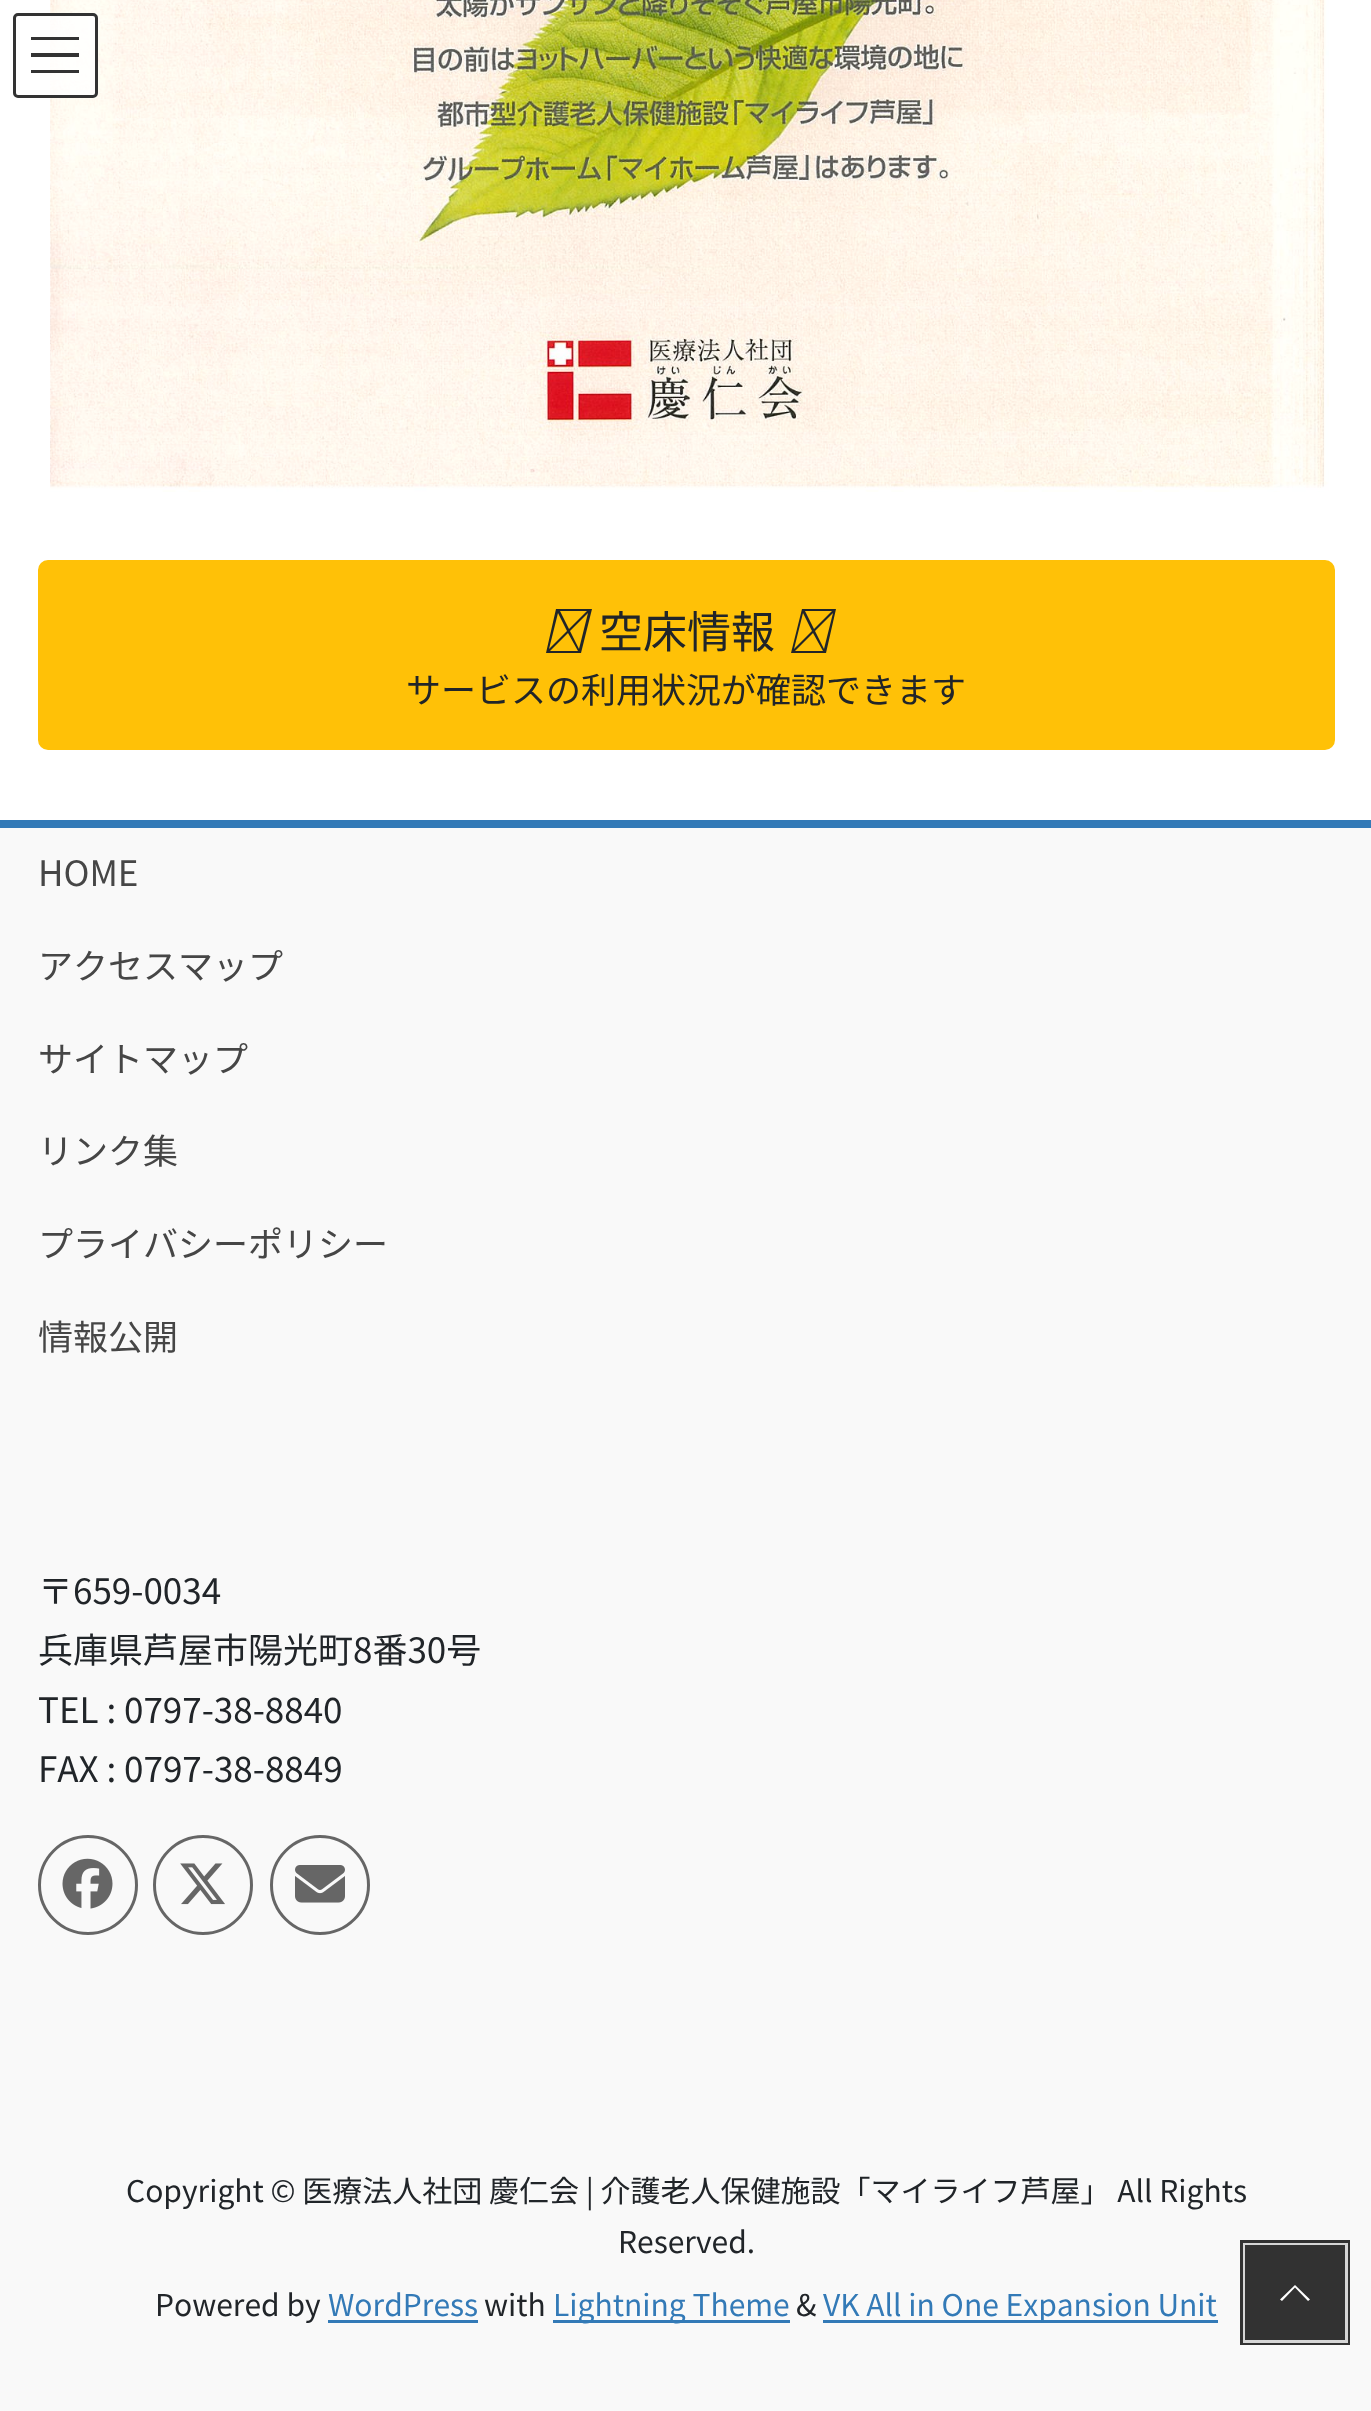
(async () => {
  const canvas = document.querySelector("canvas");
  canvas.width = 1371;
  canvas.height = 2411;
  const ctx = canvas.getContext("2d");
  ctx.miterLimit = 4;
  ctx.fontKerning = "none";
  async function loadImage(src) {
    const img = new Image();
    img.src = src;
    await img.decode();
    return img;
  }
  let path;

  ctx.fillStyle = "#ffffff";
  ctx.fillRect(0, 0, 1371, 2411);
  ctx.drawImage(await loadImage("img/1.png"), 50, 0, 1279, 492);
  ctx.fillStyle = "rgba(255, 255, 255, 0.8)";
  ctx.beginPath();
  ctx.roundRect(13, 13, 85, 85, 5);
  ctx.fill();
  for (const [x, y, w, h, color] of [
    [31, 37, 48, 3, "rgba(0, 0, 0, 0.8)"],
    [31, 53, 48, 4, "rgba(0, 0, 0, 0.8)"],
    [31, 70, 48, 3, "rgba(0, 0, 0, 0.8)"],
  ]) {
    ctx.fillStyle = color;
    ctx.fillRect(x, y, w, h);
  }
  ctx.beginPath();
  ctx.roundRect(14.5, 14.5, 82, 82, 3.5);
  ctx.strokeStyle = "#333333";
  ctx.lineWidth = 3;
  ctx.stroke();
  ctx.fillStyle = "#ffc107";
  ctx.beginPath();
  ctx.roundRect(39.5, 561.5, 1294, 187, 8.5);
  ctx.fill();
  ctx.strokeStyle = "#ffc107";
  ctx.stroke();
  ctx.fillStyle = "#212529";
  path = new Path2D("M546 653L556 609H592L581 653ZM569 629L587 611H560ZM570 631L579 649L588 613ZM550 651H578L568 633ZM558 613L549 649L567 631Z");
  ctx.fill(path);
  path = new Path2D("M791 653L802 609H836L826 653ZM814 629L832 611H805ZM815 631L824 649L833 613ZM795 651H823L813 633ZM803 613L794 649L812 631Z");
  ctx.fill(path);
  ctx.fillStyle = "#f9f9f9";
  ctx.fillRect(0, 828, 1371, 1583);
  ctx.fillStyle = "#337ab7";
  ctx.fillRect(0, 820, 1371, 8);
  ctx.beginPath();
  ctx.arc(88, 1885, 48.5, 0, Math.PI * 2);
  ctx.strokeStyle = "#666666";
  ctx.stroke();
  ctx.drawImage(await loadImage("img/2.png"), 62, 1858, 51, 51);
  ctx.beginPath();
  ctx.arc(203, 1885, 48.5, 0, Math.PI * 2);
  ctx.stroke();
  ctx.drawImage(await loadImage("img/3.png"), 180, 1863, 45, 42);
  ctx.beginPath();
  ctx.arc(320, 1885, 48.5, 0, Math.PI * 2);
  ctx.stroke();
  ctx.drawImage(await loadImage("img/4.png"), 295, 1865, 50, 38);
  for (const [x, y, w, h, color] of [
    [328, 2320, 150, 3, "#337ab7"],
    [553, 2320, 237, 3, "#337ab7"],
    [823, 2320, 395, 3, "#337ab7"],
  ]) {
    ctx.fillStyle = color;
    ctx.fillRect(x, y, w, h);
  }
  ctx.strokeStyle = "#323232";
  ctx.lineWidth = 5;
  ctx.strokeRect(1242.5, 2242.5, 105, 100);
  ctx.strokeStyle = "rgba(255, 255, 255, 0.8)";
  ctx.lineWidth = 3;
  ctx.strokeRect(1244.5, 2244.5, 102, 97);
  ctx.fillStyle = "rgba(0, 0, 0, 0.8)";
  ctx.fillRect(1245, 2245, 100, 95);
  ctx.fillStyle = "#ffffff";
  path = new Path2D("M1310 2299.5L1308 2301L1295 2287.5L1282 2301L1280 2299.5L1295 2285Z");
  ctx.fill(path);
  ctx.font = "44px Noto Sans JP";
  ctx.fillStyle = "#212529";
  ctx.fillText("空床情報", 599, 648);
  ctx.font = "35px Noto Sans JP";
  ctx.fillText("サービスの利用状況が確認できます", 406, 703);
  ctx.fillStyle = "#464646";
  for (const [text, x, y] of [
    ["HOME", 38, 886],
    ["アクセスマップ", 38, 979],
    ["サイトマップ", 38, 1072],
    ["リンク集", 38, 1164],
    ["プライバシーポリシー", 38, 1257],
    ["情報公開", 38, 1350],
  ]) {
    ctx.fillText(text, x, y);
  }
  ctx.fillStyle = "#212529";
  for (const [text, x, y] of [
    ["〒659-0034", 38, 1604],
    ["兵庫県芦屋市陽光町8番30号", 38, 1663],
    ["TEL : 0797-38-8840", 38, 1723],
    ["FAX : 0797-38-8849", 38, 1782],
  ]) {
    ctx.fillText(text, x, y);
  }
  ctx.font = "30px Noto Sans JP";
  for (const [text, x, y] of [
    ["Copyright © 医療法人社団 慶仁会 | 介護老人保健施設「マイライフ芦屋」 All Rights", 126, 2202],
    ["Reserved.", 618, 2253],
    ["Powered by", 155, 2316],
  ]) {
    ctx.fillText(text, x, y);
  }
  ctx.fillStyle = "#337ab7";
  ctx.fillText("WordPress", 328, 2316);
  ctx.fillStyle = "#212529";
  ctx.fillText("with", 484, 2316);
  ctx.fillStyle = "#337ab7";
  ctx.fillText("Lightning Theme", 553, 2316);
  ctx.fillStyle = "#212529";
  ctx.fillText("&", 796, 2316);
  ctx.fillStyle = "#337ab7";
  ctx.fillText("VK All in One Expansion Unit", 823, 2316);
})();
